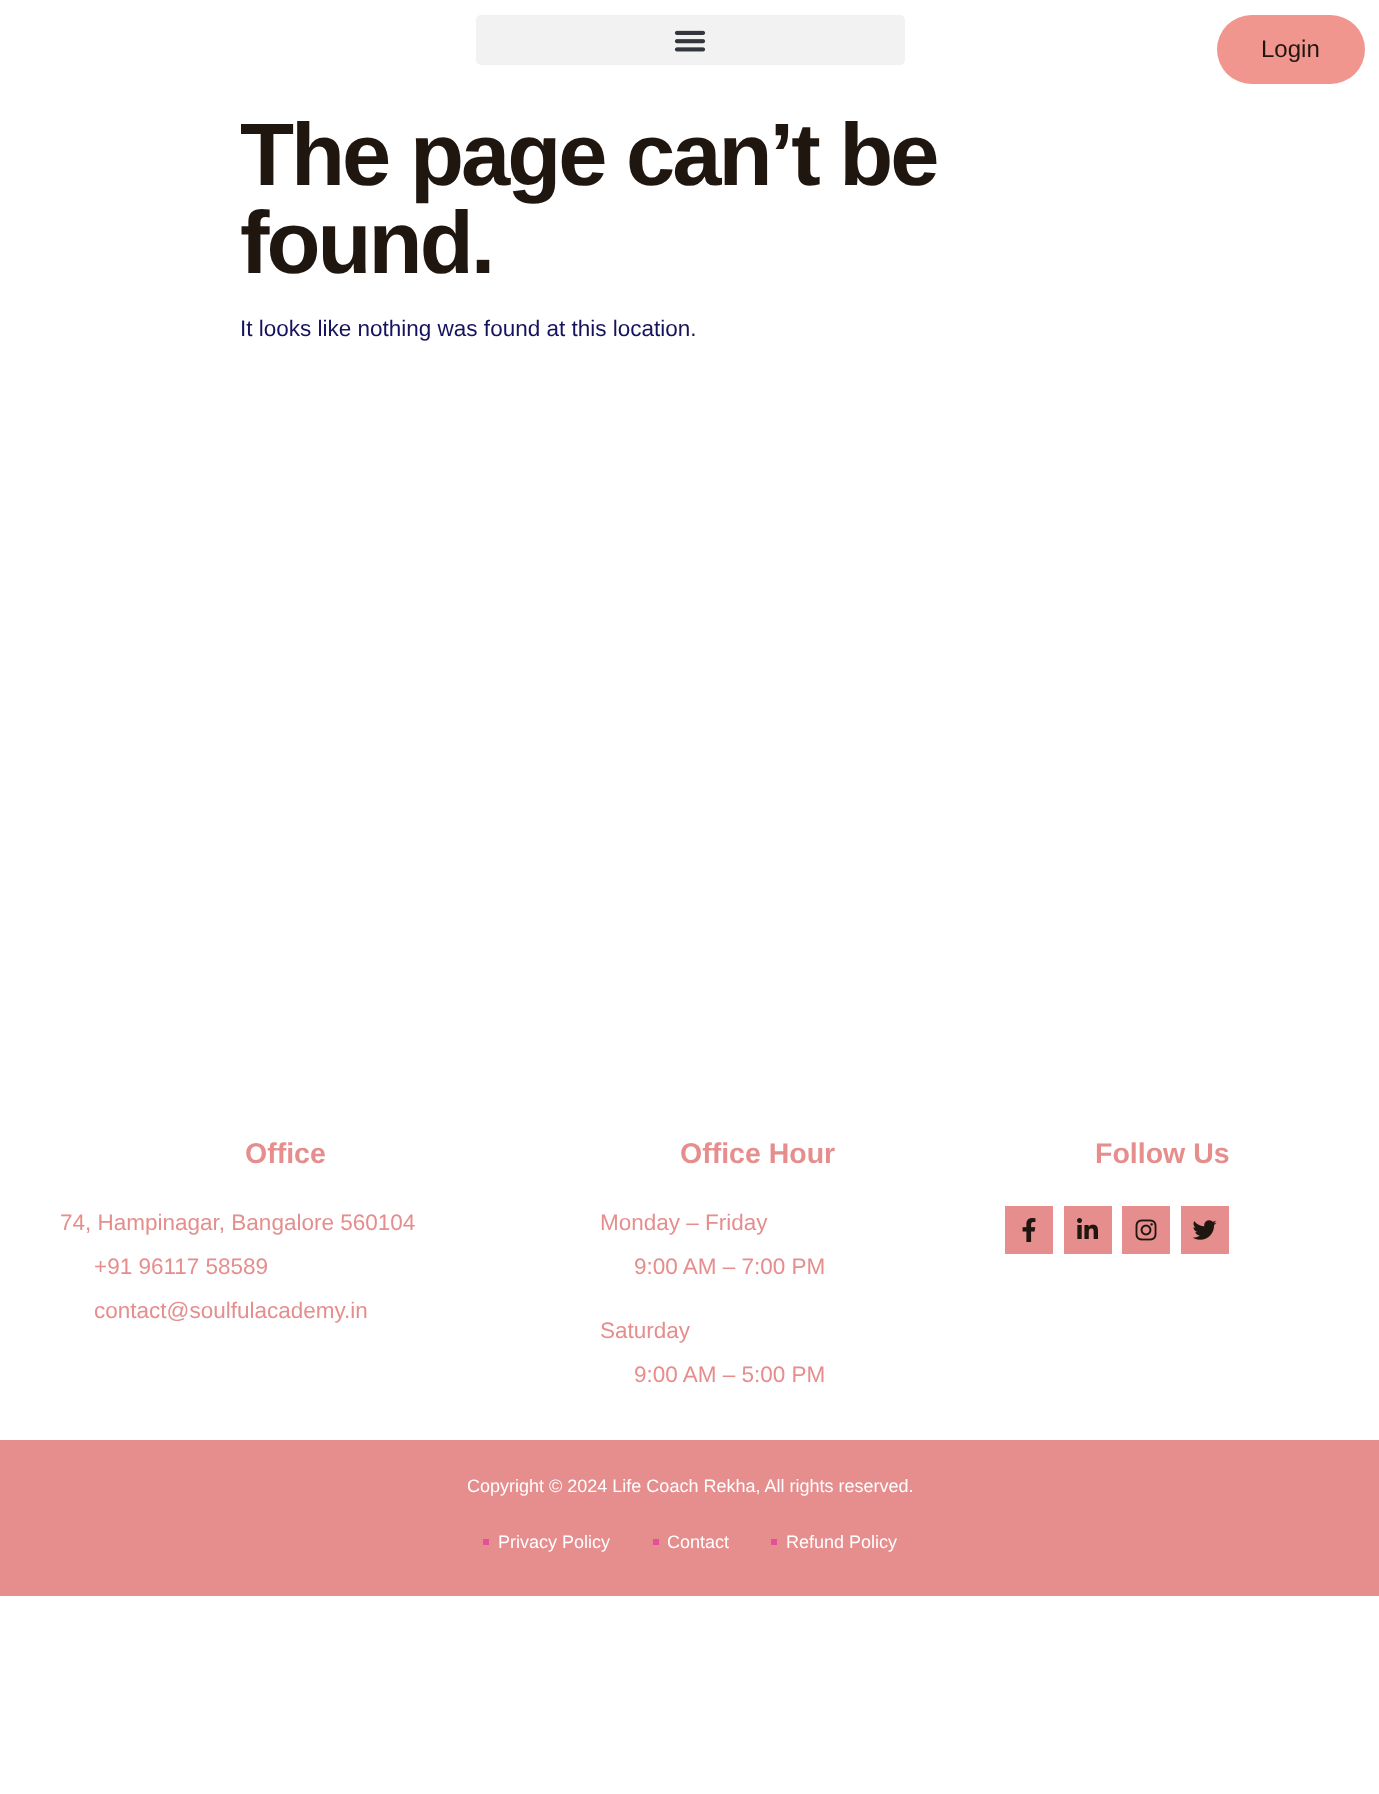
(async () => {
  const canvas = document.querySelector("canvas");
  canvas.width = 1379;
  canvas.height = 1794;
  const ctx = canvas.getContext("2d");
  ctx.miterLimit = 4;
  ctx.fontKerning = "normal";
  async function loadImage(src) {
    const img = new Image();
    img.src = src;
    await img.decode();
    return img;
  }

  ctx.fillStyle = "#ffffff";
  ctx.fillRect(0, 0, 1379, 1794);
  ctx.fillStyle = "#f2f2f2";
  ctx.beginPath();
  ctx.roundRect(476, 15, 429, 50, 5);
  ctx.fill();
  ctx.drawImage(await loadImage("img/1.png"), 674, 30, 32, 22);
  ctx.fillStyle = "#f1968f";
  ctx.beginPath();
  ctx.roundRect(1217, 15, 148, 69, 34.5);
  ctx.fill();
  ctx.fillStyle = "#e68d8d";
  ctx.fillRect(1005, 1206, 48, 48);
  ctx.drawImage(await loadImage("img/2.png"), 1022, 1218, 14, 24);
  ctx.fillRect(1064, 1206, 48, 48);
  ctx.drawImage(await loadImage("img/3.png"), 1077, 1218, 21, 21);
  ctx.fillRect(1122, 1206, 48, 48);
  ctx.drawImage(await loadImage("img/4.png"), 1135, 1219, 22, 22);
  ctx.fillRect(1181, 1206, 48, 48);
  ctx.drawImage(await loadImage("img/5.png"), 1193, 1220, 24, 20);
  for (const [x, y, w, h, color] of [
    [0, 1440, 1379, 156, "#e68d8d"],
    [483, 1539, 6, 6, "#e34f9a"],
    [653, 1539, 6, 6, "#e34f9a"],
    [771, 1539, 6, 6, "#e34f9a"],
  ]) {
    ctx.fillStyle = color;
    ctx.fillRect(x, y, w, h);
  }
  ctx.font = "24px Liberation Sans";
  ctx.fillStyle = "#201610";
  ctx.fillText("Login", 1261, 57);
  ctx.letterSpacing = "-3px";
  ctx.font = "bold 88.5px Liberation Sans";
  ctx.fillText("The page can’t be", 240, 185);
  ctx.fillText("found.", 240, 273);
  ctx.letterSpacing = "0px";
  ctx.font = "22.5px Liberation Sans";
  ctx.fillStyle = "#15135d";
  ctx.fillText("It looks like nothing was found at this location.", 240, 336);
  ctx.font = "bold 28.5px Liberation Sans";
  ctx.fillStyle = "#e68d8d";
  ctx.fillText("Office", 245, 1163);
  ctx.font = "22.5px Liberation Sans";
  for (const [text, x, y] of [
    ["74, Hampinagar, Bangalore 560104", 60, 1230],
    ["+91 96117 58589", 94, 1274],
    ["contact@soulfulacademy.in", 94, 1318],
  ]) {
    ctx.fillText(text, x, y);
  }
  ctx.font = "bold 28.5px Liberation Sans";
  ctx.fillText("Office Hour", 680, 1163);
  ctx.font = "22.5px Liberation Sans";
  for (const [text, x, y] of [
    ["Monday – Friday", 600, 1230],
    ["9:00 AM – 7:00 PM", 634, 1274],
    ["Saturday", 600, 1338],
    ["9:00 AM – 5:00 PM", 634, 1382],
  ]) {
    ctx.fillText(text, x, y);
  }
  ctx.font = "bold 28.5px Liberation Sans";
  ctx.fillText("Follow Us", 1095, 1163);
  ctx.font = "18px Liberation Sans";
  ctx.fillStyle = "#ffffff";
  for (const [text, x, y] of [
    ["Copyright © 2024 Life Coach Rekha, All rights reserved.", 467, 1492],
    ["Privacy Policy", 498, 1548],
    ["Contact", 667, 1548],
    ["Refund Policy", 786, 1548],
  ]) {
    ctx.fillText(text, x, y);
  }
})();
